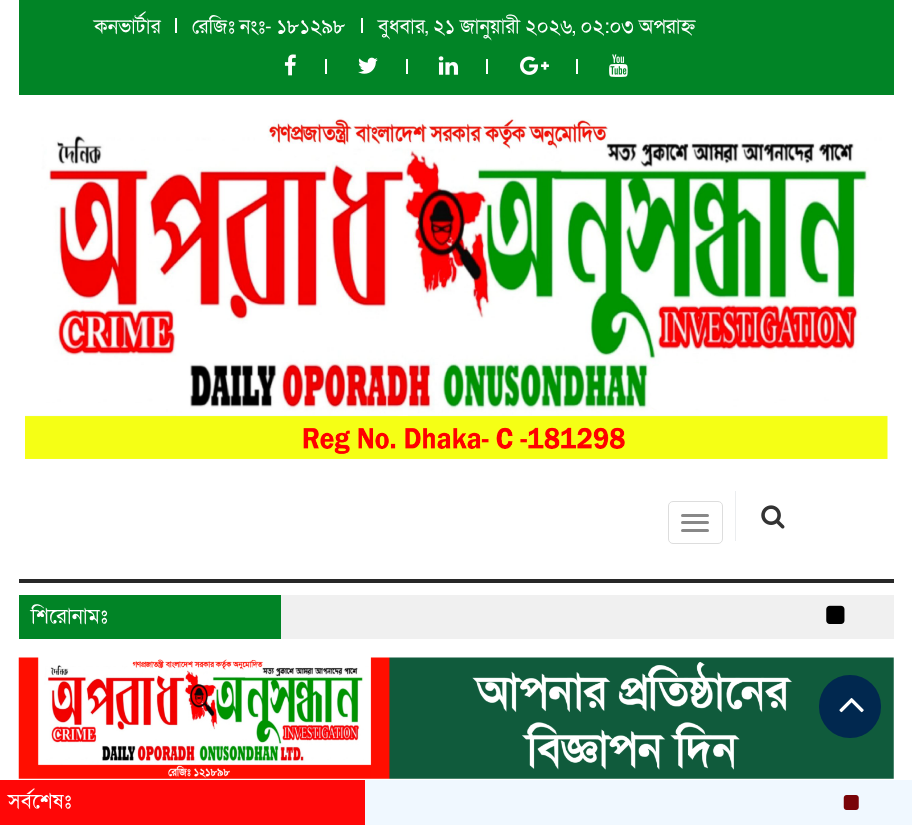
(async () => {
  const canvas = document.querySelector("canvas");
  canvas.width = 912;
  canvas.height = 825;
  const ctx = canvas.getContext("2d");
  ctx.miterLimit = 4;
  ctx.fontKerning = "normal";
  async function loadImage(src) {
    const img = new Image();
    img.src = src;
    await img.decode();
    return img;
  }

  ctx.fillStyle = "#ffffff";
  ctx.fillRect(0, 0, 912, 825);
  for (const [x, y, w, h, color] of [
    [19, 0, 875, 95, "#018426"],
    [175, 18, 2, 15, "#ffffff"],
    [361, 18, 2, 15, "#ffffff"],
  ]) {
    ctx.fillStyle = color;
    ctx.fillRect(x, y, w, h);
  }
  ctx.drawImage(await loadImage("img/1.png"), 284, 54, 12, 22);
  ctx.fillRect(325, 59, 2, 15);
  ctx.drawImage(await loadImage("img/2.png"), 358, 57, 20, 17);
  ctx.fillRect(406, 59, 2, 15);
  ctx.drawImage(await loadImage("img/3.png"), 438, 56, 21, 19);
  ctx.fillRect(486, 59, 2, 15);
  ctx.drawImage(await loadImage("img/4.png"), 520, 56, 29, 19);
  ctx.fillRect(576, 59, 2, 15);
  ctx.drawImage(await loadImage("img/5.png"), 609, 54, 19, 23);
  ctx.fillStyle = "#282828";
  ctx.fillRect(19, 579, 875, 4);
  ctx.drawImage(await loadImage("img/6.png"), 25, 117, 863, 342);
  ctx.beginPath();
  ctx.roundRect(668.5, 501.5, 54, 42, 4.5);
  ctx.strokeStyle = "#dddddd";
  ctx.stroke();
  ctx.fillStyle = "#888888";
  ctx.beginPath();
  ctx.roundRect(681, 514, 28, 3, 1.5);
  ctx.fill();
  ctx.beginPath();
  ctx.roundRect(681, 521, 28, 3, 1.5);
  ctx.fill();
  ctx.beginPath();
  ctx.roundRect(681, 529, 28, 3, 1.5);
  ctx.fill();
  ctx.fillStyle = "#ebedef";
  ctx.fillRect(735, 491, 1, 50);
  ctx.drawImage(await loadImage("img/7.png"), 761, 505, 24, 24);
  ctx.fillStyle = "#018426";
  ctx.fillRect(19, 595, 262, 44);
  ctx.fillStyle = "#f0f0f0";
  ctx.fillRect(281, 595, 613, 44);
  ctx.drawImage(await loadImage("img/8.png"), 826, 605, 19, 19);
  ctx.drawImage(await loadImage("img/9.png"), 18, 657, 876, 122);
  ctx.fillStyle = "#01284f";
  ctx.beginPath();
  ctx.roundRect(819, 675, 62, 63, 31);
  ctx.fill();
  ctx.drawImage(await loadImage("img/10.png"), 839, 698, 25, 15);
  ctx.fillStyle = "#f0f8ff";
  ctx.fillRect(365, 780, 547, 45);
  ctx.fillStyle = "#ff0707";
  ctx.fillRect(0, 780, 365, 45);
  ctx.drawImage(await loadImage("img/11.png"), 843, 795, 16, 15);
  ctx.font = "20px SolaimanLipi";
  ctx.fillStyle = "#ffffff";
  for (const [text, x, y] of [
    ["কনভার্টার", 94, 33],
    ["রেজিঃ নংঃ- ১৮১২৯৮", 192, 33],
    ["বুধবার, ২১ জানুয়ারী ২০২৬, ০২:০৩ অপরাহ্ন", 378, 33],
  ]) {
    ctx.fillText(text, x, y);
  }
  ctx.font = "21px SolaimanLipi";
  ctx.fillText("শিরোনামঃ", 31, 623);
  ctx.fillText("সর্বশেষঃ", 8, 808);
})();
